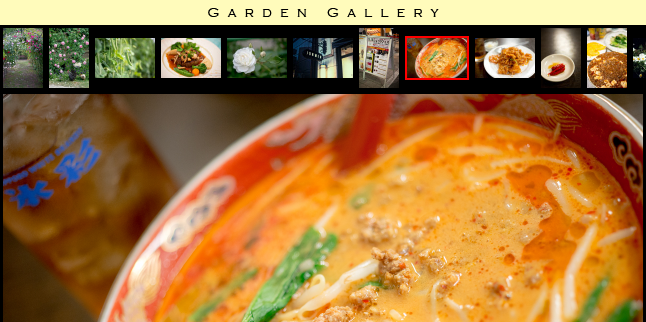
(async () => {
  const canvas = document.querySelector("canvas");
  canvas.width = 646;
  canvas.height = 322;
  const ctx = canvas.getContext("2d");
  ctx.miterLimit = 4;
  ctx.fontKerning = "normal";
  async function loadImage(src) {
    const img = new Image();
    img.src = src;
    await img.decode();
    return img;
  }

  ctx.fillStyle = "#000000";
  ctx.fillRect(0, 0, 646, 322);
  ctx.fillStyle = "#fffbbb";
  ctx.fillRect(0, 0, 646, 25);
  ctx.drawImage(await loadImage("img/1.png"), 208, 8, 231, 9);
  ctx.drawImage(await loadImage("img/2.png"), 3, 28, 40, 60);
  ctx.drawImage(await loadImage("img/3.png"), 49, 28, 40, 60);
  ctx.drawImage(await loadImage("img/4.png"), 95, 38, 60, 40);
  ctx.drawImage(await loadImage("img/5.png"), 161, 38, 60, 40);
  ctx.drawImage(await loadImage("img/6.png"), 227, 38, 60, 40);
  ctx.drawImage(await loadImage("img/7.png"), 293, 38, 60, 40);
  ctx.drawImage(await loadImage("img/8.png"), 359, 28, 40, 60);
  ctx.strokeStyle = "#ff0000";
  ctx.lineWidth = 2;
  ctx.strokeRect(406, 37, 62, 42);
  ctx.drawImage(await loadImage("img/9.png"), 407, 38, 60, 40);
  ctx.drawImage(await loadImage("img/10.png"), 475, 38, 60, 40);
  ctx.drawImage(await loadImage("img/11.png"), 541, 28, 40, 60);
  ctx.drawImage(await loadImage("img/12.png"), 587, 28, 40, 60);
  ctx.drawImage(await loadImage("img/13.png"), 633, 38, 13, 40);
  ctx.drawImage(await loadImage("img/14.png"), 3, 94, 640, 228);
})();
